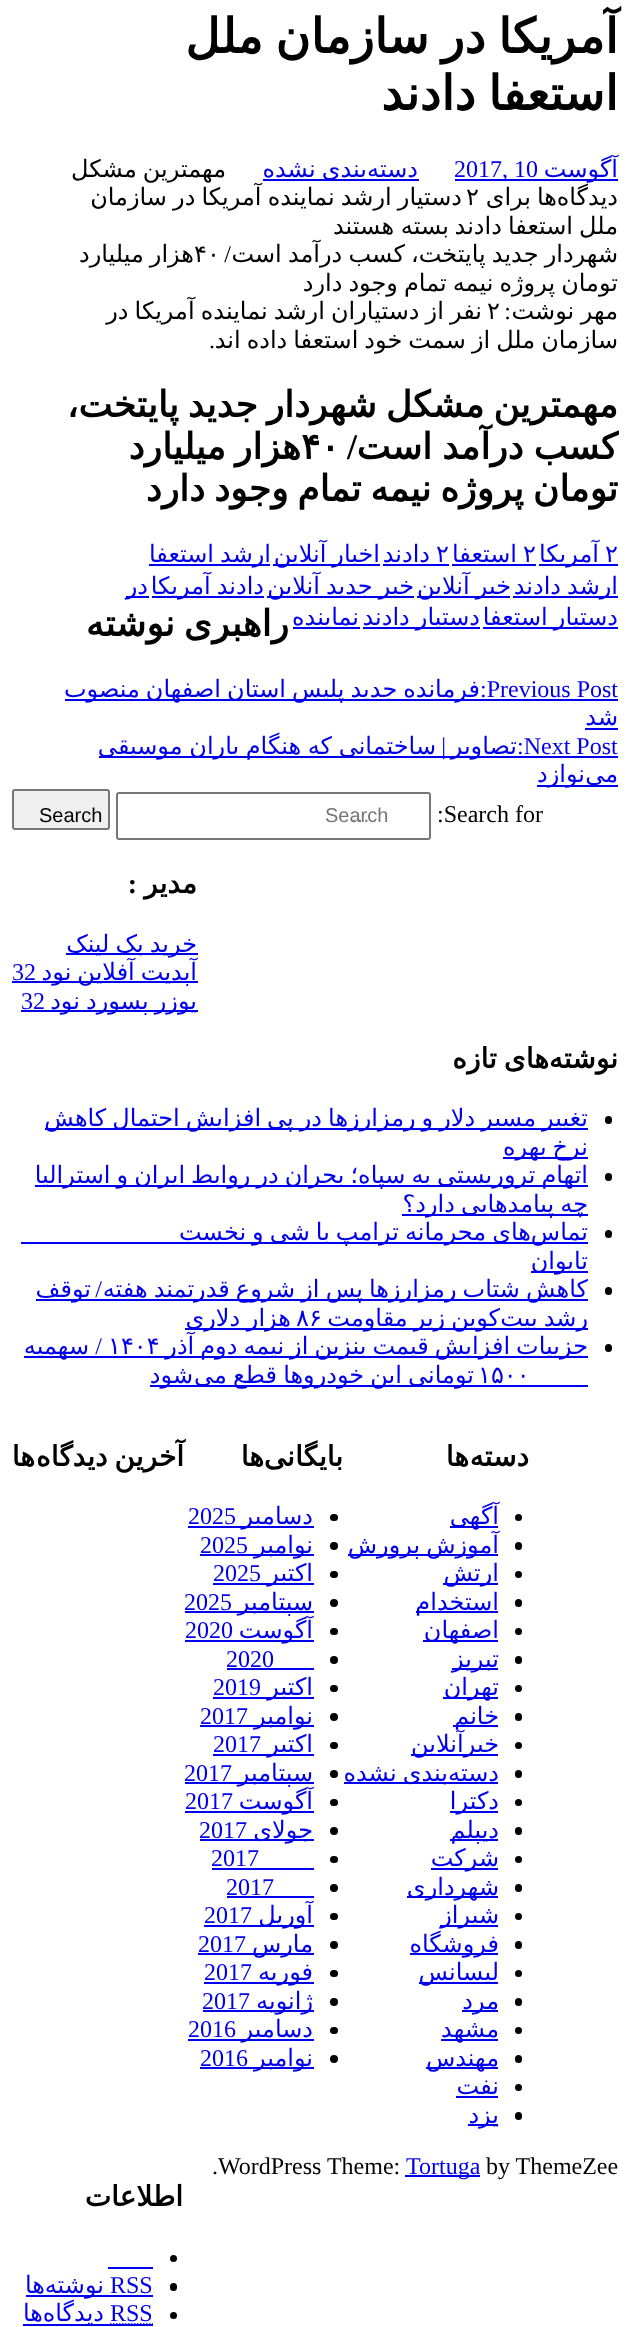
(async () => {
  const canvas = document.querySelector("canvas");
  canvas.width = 630;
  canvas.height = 2327;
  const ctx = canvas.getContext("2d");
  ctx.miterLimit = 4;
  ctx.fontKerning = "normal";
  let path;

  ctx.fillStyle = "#ffffff";
  ctx.fillRect(0, 0, 630, 2327);
  for (const [x, y, w, h, color] of [
    [455, 179, 163, 2, "#0000ee"],
    [263, 179, 156, 2, "#0000ee"],
    [539, 564, 79, 2, "#0000ee"],
    [452, 564, 84, 2, "#0000ee"],
    [383, 564, 66, 2, "#0000ee"],
    [273, 564, 107, 2, "#0000ee"],
    [149, 564, 121, 2, "#0000ee"],
    [513, 596, 105, 2, "#0000ee"],
    [417, 596, 93, 2, "#0000ee"],
    [267, 596, 147, 2, "#0000ee"],
    [152, 596, 112, 2, "#0000ee"],
    [126, 596, 23, 2, "#0000ee"],
    [483, 627, 135, 2, "#0000ee"],
    [363, 627, 117, 2, "#0000ee"],
    [293, 627, 67, 2, "#0000ee"],
    [65, 699, 553, 2, "#0000ee"],
    [585, 728, 33, 2, "#0000ee"],
    [99, 756, 519, 2, "#0000ee"],
    [537, 785, 81, 2, "#0000ee"],
  ]) {
    ctx.fillStyle = color;
    ctx.fillRect(x, y, w, h);
  }
  ctx.beginPath();
  ctx.roundRect(117, 793, 313, 46, 2);
  ctx.strokeStyle = "#767676";
  ctx.lineWidth = 2;
  ctx.stroke();
  ctx.fillStyle = "#efefef";
  ctx.beginPath();
  ctx.roundRect(13, 790, 96, 39, 2);
  ctx.fill();
  ctx.stroke();
  for (const [x, y, w, h, color] of [
    [66, 953, 132, 2, "#0000ee"],
    [12, 981, 186, 2, "#0000ee"],
    [21, 1010, 177, 2, "#0000ee"],
  ]) {
    ctx.fillStyle = color;
    ctx.fillRect(x, y, w, h);
  }
  ctx.fillStyle = "#000000";
  ctx.beginPath();
  ctx.roundRect(605, 1116, 7, 8, 3.5);
  ctx.fill();
  ctx.fillStyle = "#0000ee";
  ctx.fillRect(45, 1128, 543, 2);
  ctx.fillRect(503, 1157, 85, 2);
  ctx.fillStyle = "#000000";
  ctx.beginPath();
  ctx.roundRect(605, 1173, 7, 8, 3.5);
  ctx.fill();
  ctx.fillStyle = "#0000ee";
  ctx.fillRect(35, 1185, 553, 2);
  ctx.fillRect(402, 1214, 186, 2);
  ctx.fillStyle = "#000000";
  ctx.beginPath();
  ctx.roundRect(605, 1230, 7, 8, 3.5);
  ctx.fill();
  ctx.fillStyle = "#0000ee";
  ctx.fillRect(21, 1242, 567, 2);
  ctx.fillRect(531, 1271, 57, 2);
  ctx.fillStyle = "#000000";
  ctx.beginPath();
  ctx.roundRect(605, 1287, 7, 8, 3.5);
  ctx.fill();
  ctx.fillStyle = "#0000ee";
  ctx.fillRect(36, 1299, 552, 2);
  ctx.fillRect(185, 1328, 403, 2);
  ctx.fillStyle = "#000000";
  ctx.beginPath();
  ctx.roundRect(605, 1344, 7, 8, 3.5);
  ctx.fill();
  ctx.fillStyle = "#0000ee";
  ctx.fillRect(24, 1356, 564, 2);
  ctx.fillRect(150, 1385, 438, 2);
  ctx.fillStyle = "#000000";
  ctx.beginPath();
  ctx.arc(518.5, 1517.5, 3.5, 0, Math.PI * 2);
  ctx.fill();
  ctx.fillStyle = "#0000ee";
  ctx.fillRect(450, 1526, 48, 2);
  ctx.fillStyle = "#000000";
  ctx.beginPath();
  ctx.roundRect(515, 1542, 7, 8, 3.5);
  ctx.fill();
  ctx.fillStyle = "#0000ee";
  ctx.fillRect(348, 1554, 150, 2);
  ctx.fillStyle = "#000000";
  ctx.beginPath();
  ctx.arc(518.5, 1574.5, 3.5, 0, Math.PI * 2);
  ctx.fill();
  ctx.fillStyle = "#0000ee";
  ctx.fillRect(443, 1583, 55, 2);
  ctx.fillStyle = "#000000";
  ctx.beginPath();
  ctx.roundRect(515, 1599, 7, 8, 3.5);
  ctx.fill();
  ctx.fillStyle = "#0000ee";
  ctx.fillRect(416, 1611, 82, 2);
  ctx.fillStyle = "#000000";
  ctx.beginPath();
  ctx.arc(518.5, 1631.5, 3.5, 0, Math.PI * 2);
  ctx.fill();
  ctx.fillStyle = "#0000ee";
  ctx.fillRect(423, 1640, 75, 2);
  ctx.fillStyle = "#000000";
  ctx.beginPath();
  ctx.roundRect(515, 1656, 7, 8, 3.5);
  ctx.fill();
  ctx.fillStyle = "#0000ee";
  ctx.fillRect(452, 1668, 46, 2);
  ctx.fillStyle = "#000000";
  ctx.beginPath();
  ctx.arc(518.5, 1688.5, 3.5, 0, Math.PI * 2);
  ctx.fill();
  ctx.fillStyle = "#0000ee";
  ctx.fillRect(443, 1697, 55, 2);
  ctx.fillStyle = "#000000";
  ctx.beginPath();
  ctx.roundRect(515, 1713, 7, 8, 3.5);
  ctx.fill();
  ctx.fillStyle = "#0000ee";
  ctx.fillRect(453, 1725, 45, 2);
  ctx.fillStyle = "#000000";
  ctx.beginPath();
  ctx.arc(518.5, 1745.5, 3.5, 0, Math.PI * 2);
  ctx.fill();
  ctx.fillStyle = "#0000ee";
  ctx.fillRect(411, 1754, 87, 2);
  ctx.fillStyle = "#000000";
  ctx.beginPath();
  ctx.roundRect(515, 1770, 7, 8, 3.5);
  ctx.fill();
  ctx.fillStyle = "#0000ee";
  ctx.fillRect(344, 1782, 154, 2);
  ctx.fillStyle = "#000000";
  ctx.beginPath();
  ctx.arc(518.5, 1802.5, 3.5, 0, Math.PI * 2);
  ctx.fill();
  ctx.fillStyle = "#0000ee";
  ctx.fillRect(450, 1811, 48, 2);
  ctx.fillStyle = "#000000";
  ctx.beginPath();
  ctx.roundRect(515, 1827, 7, 8, 3.5);
  ctx.fill();
  ctx.fillStyle = "#0000ee";
  ctx.fillRect(450, 1839, 48, 2);
  ctx.fillStyle = "#000000";
  ctx.beginPath();
  ctx.arc(518.5, 1859.5, 3.5, 0, Math.PI * 2);
  ctx.fill();
  ctx.fillStyle = "#0000ee";
  ctx.fillRect(431, 1868, 67, 2);
  ctx.fillStyle = "#000000";
  ctx.beginPath();
  ctx.roundRect(515, 1884, 7, 8, 3.5);
  ctx.fill();
  ctx.fillStyle = "#0000ee";
  ctx.fillRect(407, 1896, 91, 2);
  ctx.fillStyle = "#000000";
  ctx.beginPath();
  ctx.arc(518.5, 1916.5, 3.5, 0, Math.PI * 2);
  ctx.fill();
  ctx.fillStyle = "#0000ee";
  ctx.fillRect(440, 1925, 58, 2);
  ctx.fillStyle = "#000000";
  ctx.beginPath();
  ctx.roundRect(515, 1941, 7, 8, 3.5);
  ctx.fill();
  ctx.fillStyle = "#0000ee";
  ctx.fillRect(410, 1953, 88, 2);
  ctx.fillStyle = "#000000";
  ctx.beginPath();
  ctx.arc(518.5, 1973.5, 3.5, 0, Math.PI * 2);
  ctx.fill();
  ctx.fillStyle = "#0000ee";
  ctx.fillRect(419, 1982, 79, 2);
  ctx.fillStyle = "#000000";
  ctx.beginPath();
  ctx.roundRect(515, 1998, 7, 8, 3.5);
  ctx.fill();
  ctx.fillStyle = "#0000ee";
  ctx.fillRect(462, 2010, 36, 2);
  ctx.fillStyle = "#000000";
  ctx.beginPath();
  ctx.arc(518.5, 2030.5, 3.5, 0, Math.PI * 2);
  ctx.fill();
  ctx.fillStyle = "#0000ee";
  ctx.fillRect(441, 2039, 57, 2);
  ctx.fillStyle = "#000000";
  ctx.beginPath();
  ctx.roundRect(515, 2055, 7, 8, 3.5);
  ctx.fill();
  ctx.fillStyle = "#0000ee";
  ctx.fillRect(426, 2067, 72, 2);
  ctx.fillStyle = "#000000";
  ctx.beginPath();
  ctx.arc(518.5, 2087.5, 3.5, 0, Math.PI * 2);
  ctx.fill();
  ctx.fillStyle = "#0000ee";
  ctx.fillRect(456, 2096, 42, 2);
  ctx.fillStyle = "#000000";
  ctx.beginPath();
  ctx.roundRect(515, 2112, 7, 8, 3.5);
  ctx.fill();
  ctx.fillStyle = "#0000ee";
  ctx.fillRect(468, 2124, 30, 2);
  ctx.fillStyle = "#000000";
  ctx.beginPath();
  ctx.roundRect(330, 1514, 8, 7, 3.5);
  ctx.fill();
  ctx.fillStyle = "#0000ee";
  ctx.fillRect(188, 1526, 126, 2);
  ctx.fillStyle = "#000000";
  ctx.beginPath();
  ctx.arc(334, 1546, 4, 0, Math.PI * 2);
  ctx.fill();
  ctx.fillStyle = "#0000ee";
  ctx.fillRect(200, 1554, 114, 2);
  ctx.fillStyle = "#000000";
  ctx.beginPath();
  ctx.roundRect(330, 1571, 8, 7, 3.5);
  ctx.fill();
  ctx.fillStyle = "#0000ee";
  ctx.fillRect(213, 1583, 101, 2);
  ctx.fillStyle = "#000000";
  ctx.beginPath();
  ctx.arc(334, 1603, 4, 0, Math.PI * 2);
  ctx.fill();
  ctx.fillStyle = "#0000ee";
  ctx.fillRect(185, 1611, 129, 2);
  ctx.fillStyle = "#000000";
  ctx.beginPath();
  ctx.roundRect(330, 1628, 8, 7, 3.5);
  ctx.fill();
  ctx.fillStyle = "#0000ee";
  ctx.fillRect(185, 1640, 129, 2);
  ctx.fillStyle = "#000000";
  ctx.beginPath();
  ctx.arc(334, 1660, 4, 0, Math.PI * 2);
  ctx.fill();
  ctx.fillStyle = "#0000ee";
  ctx.fillRect(227, 1668, 87, 2);
  ctx.fillStyle = "#000000";
  ctx.beginPath();
  ctx.roundRect(330, 1685, 8, 7, 3.5);
  ctx.fill();
  ctx.fillStyle = "#0000ee";
  ctx.fillRect(213, 1697, 101, 2);
  ctx.fillStyle = "#000000";
  ctx.beginPath();
  ctx.arc(334, 1717, 4, 0, Math.PI * 2);
  ctx.fill();
  ctx.fillStyle = "#0000ee";
  ctx.fillRect(200, 1725, 114, 2);
  ctx.fillStyle = "#000000";
  ctx.beginPath();
  ctx.roundRect(330, 1742, 8, 7, 3.5);
  ctx.fill();
  ctx.fillStyle = "#0000ee";
  ctx.fillRect(213, 1754, 101, 2);
  ctx.fillStyle = "#000000";
  ctx.beginPath();
  ctx.arc(334, 1774, 4, 0, Math.PI * 2);
  ctx.fill();
  ctx.fillStyle = "#0000ee";
  ctx.fillRect(185, 1782, 129, 2);
  ctx.fillStyle = "#000000";
  ctx.beginPath();
  ctx.roundRect(330, 1799, 8, 7, 3.5);
  ctx.fill();
  ctx.fillStyle = "#0000ee";
  ctx.fillRect(185, 1811, 129, 2);
  ctx.fillStyle = "#000000";
  ctx.beginPath();
  ctx.arc(334, 1831, 4, 0, Math.PI * 2);
  ctx.fill();
  ctx.fillStyle = "#0000ee";
  ctx.fillRect(200, 1839, 114, 2);
  ctx.fillStyle = "#000000";
  ctx.beginPath();
  ctx.roundRect(330, 1856, 8, 7, 3.5);
  ctx.fill();
  ctx.fillStyle = "#0000ee";
  ctx.fillRect(212, 1868, 102, 2);
  ctx.fillStyle = "#000000";
  ctx.beginPath();
  ctx.arc(334, 1888, 4, 0, Math.PI * 2);
  ctx.fill();
  ctx.fillStyle = "#0000ee";
  ctx.fillRect(227, 1896, 87, 2);
  ctx.fillStyle = "#000000";
  ctx.beginPath();
  ctx.roundRect(330, 1913, 8, 7, 3.5);
  ctx.fill();
  ctx.fillStyle = "#0000ee";
  ctx.fillRect(204, 1925, 110, 2);
  ctx.fillStyle = "#000000";
  ctx.beginPath();
  ctx.arc(334, 1945, 4, 0, Math.PI * 2);
  ctx.fill();
  ctx.fillStyle = "#0000ee";
  ctx.fillRect(198, 1953, 116, 2);
  ctx.fillStyle = "#000000";
  ctx.beginPath();
  ctx.roundRect(330, 1970, 8, 7, 3.5);
  ctx.fill();
  ctx.fillStyle = "#0000ee";
  ctx.fillRect(204, 1982, 110, 2);
  ctx.fillStyle = "#000000";
  ctx.beginPath();
  ctx.arc(334, 2002, 4, 0, Math.PI * 2);
  ctx.fill();
  ctx.fillStyle = "#0000ee";
  ctx.fillRect(203, 2010, 111, 2);
  ctx.fillStyle = "#000000";
  ctx.beginPath();
  ctx.roundRect(330, 2027, 8, 7, 3.5);
  ctx.fill();
  ctx.fillStyle = "#0000ee";
  ctx.fillRect(188, 2039, 126, 2);
  ctx.fillStyle = "#000000";
  ctx.beginPath();
  ctx.arc(334, 2059, 4, 0, Math.PI * 2);
  ctx.fill();
  ctx.fillStyle = "#0000ee";
  ctx.fillRect(200, 2067, 114, 2);
  ctx.fillStyle = "#000000";
  ctx.beginPath();
  ctx.arc(173.5, 2258.5, 3.5, 0, Math.PI * 2);
  ctx.fill();
  ctx.fillStyle = "#0000ee";
  ctx.fillRect(108, 2267, 45, 2);
  ctx.fillStyle = "#000000";
  ctx.beginPath();
  ctx.roundRect(170, 2283, 7, 8, 3.5);
  ctx.fill();
  ctx.fillStyle = "#0000ee";
  ctx.fillRect(26, 2295, 127, 2);
  ctx.fillStyle = "#000000";
  ctx.beginPath();
  ctx.arc(173.5, 2315.5, 3.5, 0, Math.PI * 2);
  ctx.fill();
  path = new Path2D("M110 2324H153");
  ctx.strokeStyle = "#0000ee";
  ctx.lineWidth = 1.5;
  ctx.setLineDash([1.5, 1.5]);
  ctx.stroke(path);
  ctx.fillStyle = "#0000ee";
  ctx.fillRect(23, 2324, 130, 2);
  ctx.fillRect(405, 2175, 75, 2);
  ctx.wordSpacing = "-3px";
  ctx.direction = "rtl";
  ctx.font = "bold 48px DejaVu Sans";
  ctx.fillStyle = "#000000";
  ctx.fillText("آمریکا در سازمان ملل", 618, 53);
  ctx.fillText("استعفا دادند", 618, 110);
  ctx.wordSpacing = "0px";
  ctx.font = "24px DejaVu Sans";
  ctx.fillStyle = "#0000ee";
  ctx.fillText("آگوست", 618, 177);
  ctx.direction = "ltr";
  ctx.font = "24px Liberation Serif";
  ctx.fillText("2017, 10", 454, 177);
  ctx.direction = "rtl";
  ctx.font = "24px DejaVu Sans";
  ctx.fillText("دسته", 418, 177);
  ctx.wordSpacing = "-1.6px";
  ctx.fillText("بندی نشده", 367, 177);
  ctx.wordSpacing = "0px";
  ctx.fillStyle = "#000000";
  for (const [text, x, y] of [
    ["دیدگاه", 618, 205],
    ["ها", 557, 205],
    ["برای", 531, 205],
  ]) {
    ctx.fillText(text, x, y);
  }
  ctx.direction = "ltr";
  ctx.fillText("۲", 466, 205);
  ctx.wordSpacing = "-1.5px";
  ctx.direction = "rtl";
  ctx.fillText("دستیار ارشد نماینده آمریکا در سازمان", 462, 205);
  ctx.wordSpacing = "-1.6px";
  ctx.fillText("ملل استعفا دادند", 618, 234);
  ctx.wordSpacing = "-1px";
  ctx.fillText("بسته هستند", 449, 234);
  ctx.wordSpacing = "-1.6px";
  ctx.fillText("مهمترین مشکل", 226, 177);
  ctx.wordSpacing = "-1.5px";
  ctx.fillText("شهردار جدید پایتخت، کسب درآمد است", 618, 262);
  ctx.wordSpacing = "0px";
  ctx.font = "24px Liberation Serif";
  ctx.fillText("/", 231, 262);
  ctx.direction = "ltr";
  ctx.font = "24px DejaVu Sans";
  ctx.fillText("۴۰", 194, 262);
  ctx.wordSpacing = "-1.6px";
  ctx.direction = "rtl";
  ctx.fillText("هزار میلیارد", 194, 262);
  ctx.fillText("تومان پروژه نیمه تمام وجود دارد", 618, 291);
  ctx.wordSpacing = "-1px";
  ctx.fillText("مهر نوشت", 618, 319);
  ctx.wordSpacing = "0px";
  ctx.font = "24px Liberation Serif";
  ctx.fillText(":", 511, 319);
  ctx.direction = "ltr";
  ctx.font = "24px DejaVu Sans";
  ctx.fillText("۲", 487, 319);
  ctx.wordSpacing = "-1.5px";
  ctx.direction = "rtl";
  ctx.fillText("نفر از دستیاران ارشد نماینده آمریکا در", 482, 319);
  ctx.wordSpacing = "-1.6px";
  ctx.fillText("سازمان ملل از سمت خود استعفا داده اند", 618, 348);
  ctx.wordSpacing = "0px";
  ctx.font = "24px Liberation Serif";
  ctx.fillText(".", 215, 348);
  ctx.wordSpacing = "-2.5px";
  ctx.font = "bold 36px DejaVu Sans";
  ctx.fillText("مهمترین مشکل شهردار جدید پایتخت،", 618, 417);
  ctx.wordSpacing = "-1.6px";
  ctx.fillText("کسب درآمد است", 618, 459);
  ctx.wordSpacing = "0px";
  ctx.font = "bold 36px Liberation Serif";
  ctx.fillText("/", 357, 459);
  ctx.direction = "ltr";
  ctx.font = "bold 36px DejaVu Sans";
  ctx.fillText("۴۰", 301, 459);
  ctx.wordSpacing = "-2.5px";
  ctx.direction = "rtl";
  ctx.fillText("هزار میلیارد", 301, 459);
  ctx.fillText("تومان پروژه نیمه تمام وجود دارد", 618, 501);
  ctx.wordSpacing = "0px";
  ctx.direction = "ltr";
  ctx.font = "24px DejaVu Sans";
  ctx.fillStyle = "#0000ee";
  ctx.fillText("۲", 605, 562);
  ctx.direction = "rtl";
  ctx.fillText("آمریکا", 599, 562);
  ctx.direction = "ltr";
  ctx.fillText("۲", 523, 562);
  ctx.direction = "rtl";
  ctx.fillText("استعفا", 517, 562);
  ctx.direction = "ltr";
  ctx.fillText("۲", 436, 562);
  ctx.direction = "rtl";
  ctx.fillText("دادند", 430, 562);
  ctx.wordSpacing = "-1.6px";
  for (const [text, x, y] of [
    ["اخبار آنلاین", 380, 562],
    ["ارشد استعفا", 271, 562],
    ["ارشد دادند", 618, 594],
    ["خبر آنلاین", 511, 594],
    ["خبر جدید آنلاین", 414, 594],
    ["دادند آمریکا", 264, 594],
  ]) {
    ctx.fillText(text, x, y);
  }
  ctx.wordSpacing = "0px";
  ctx.fillText("در", 148, 594);
  ctx.wordSpacing = "-1.6px";
  ctx.fillText("دستیار استعفا", 618, 625);
  ctx.fillText("دستیار دادند", 480, 625);
  ctx.wordSpacing = "0px";
  ctx.fillText("نماینده", 359, 625);
  ctx.wordSpacing = "-2.5px";
  ctx.font = "bold 36px DejaVu Sans";
  ctx.fillStyle = "#000000";
  ctx.fillText("راهبری نوشته", 289, 636);
  ctx.wordSpacing = "0px";
  ctx.direction = "ltr";
  ctx.font = "24px Liberation Serif";
  ctx.fillStyle = "#0000ee";
  ctx.fillText(":Previous Post", 480, 697);
  ctx.wordSpacing = "-1.6px";
  ctx.direction = "rtl";
  ctx.font = "24px DejaVu Sans";
  ctx.fillText("فرمانده جدید پلیس استان اصفهان منصوب", 480, 697);
  ctx.wordSpacing = "0px";
  ctx.fillText("شد", 618, 725);
  ctx.direction = "ltr";
  ctx.font = "24px Liberation Serif";
  ctx.fillText(":Next Post", 517, 754);
  ctx.direction = "rtl";
  ctx.font = "24px DejaVu Sans";
  ctx.fillText("تصاویر", 517, 754);
  ctx.font = "24px Liberation Serif";
  ctx.fillText("|", 446, 754);
  ctx.wordSpacing = "-1px";
  ctx.font = "24px DejaVu Sans";
  ctx.fillText("ساختمانی که هنگام باران موسیقی", 436, 754);
  ctx.wordSpacing = "0px";
  ctx.fillText("می", 618, 782);
  ctx.fillText("نوازد", 585, 782);
  ctx.direction = "ltr";
  ctx.font = "24px Liberation Serif";
  ctx.fillStyle = "#000000";
  ctx.fillText(":Search for", 437, 822);
  ctx.font = "20px Liberation Sans";
  ctx.fillStyle = "#757575";
  ctx.fillText("Search", 325, 822);
  ctx.fillText("…", 350, 822);
  ctx.fillStyle = "#000000";
  ctx.fillText("Search", 39, 822);
  ctx.direction = "rtl";
  ctx.font = "bold 28px DejaVu Sans";
  ctx.fillText("مدیر", 197, 893);
  ctx.font = "bold 28px Liberation Serif";
  ctx.fillText(":", 137, 893);
  ctx.wordSpacing = "-1.6px";
  ctx.font = "24px DejaVu Sans";
  ctx.fillStyle = "#0000ee";
  ctx.fillText("خرید بک لینک", 197, 952);
  ctx.fillText("آپدیت آفلاین نود", 197, 980);
  ctx.wordSpacing = "0px";
  ctx.direction = "ltr";
  ctx.font = "24px Liberation Serif";
  ctx.fillText("32", 12, 980);
  ctx.wordSpacing = "-1.6px";
  ctx.direction = "rtl";
  ctx.font = "24px DejaVu Sans";
  ctx.fillText("یوزر پسورد نود", 197, 1009);
  ctx.wordSpacing = "0px";
  ctx.direction = "ltr";
  ctx.font = "24px Liberation Serif";
  ctx.fillText("32", 21, 1009);
  ctx.direction = "rtl";
  ctx.font = "bold 28px DejaVu Sans";
  ctx.fillStyle = "#000000";
  ctx.fillText("نوشته", 618, 1068);
  ctx.wordSpacing = "-2px";
  ctx.fillText("های تازه", 549, 1068);
  ctx.wordSpacing = "-1.6px";
  ctx.font = "24px DejaVu Sans";
  ctx.fillStyle = "#0000ee";
  for (const [text, x, y] of [
    ["تغییر مسیر دلار و رمزارزها در پی افزایش احتمال کاهش", 588, 1126],
    ["نرخ بهره", 588, 1155],
    ["اتهام تروریستی به سپاه؛ بحران در روابط ایران و استرالیا", 588, 1183],
    ["چه پیامدهایی دارد؟", 588, 1212],
  ]) {
    ctx.fillText(text, x, y);
  }
  ctx.wordSpacing = "0px";
  ctx.fillText("تماس", 588, 1240);
  ctx.wordSpacing = "-1.6px";
  ctx.fillText("های محرمانه ترامپ با شی و نخست", 531, 1240);
  ctx.wordSpacing = "0px";
  ctx.fillText("تایوان", 588, 1269);
  ctx.wordSpacing = "-1.5px";
  ctx.fillText("ها پس از شروع قدرتمند هفته", 389, 1297);
  ctx.fillText("کاهش شتاب رمزارز", 588, 1297);
  ctx.wordSpacing = "0px";
  ctx.font = "24px Liberation Serif";
  ctx.fillText("/", 102, 1297);
  ctx.font = "24px DejaVu Sans";
  ctx.fillText("توقف", 91, 1297);
  ctx.wordSpacing = "-1.6px";
  ctx.fillText("رشد بیت", 588, 1326);
  ctx.fillText("کوین زیر مقاومت", 500, 1326);
  ctx.wordSpacing = "0px";
  ctx.direction = "ltr";
  ctx.fillText("۸۶", 296, 1326);
  ctx.wordSpacing = "-1px";
  ctx.direction = "rtl";
  ctx.fillText("هزار دلاری", 291, 1326);
  ctx.wordSpacing = "-1.6px";
  ctx.fillText("جزییات افزایش قیمت بنزین از نیمه دوم آذر", 588, 1354);
  ctx.wordSpacing = "0px";
  ctx.direction = "ltr";
  ctx.fillText("۱۴۰۴", 108, 1354);
  ctx.direction = "rtl";
  ctx.font = "24px Liberation Serif";
  ctx.fillText("/", 102, 1354);
  ctx.font = "24px DejaVu Sans";
  ctx.fillText("سهمیه", 89, 1354);
  ctx.direction = "ltr";
  ctx.fillText("۱۵۰۰", 478, 1383);
  ctx.wordSpacing = "-1.5px";
  ctx.direction = "rtl";
  ctx.fillText("تومانی این خودروها قطع می", 474, 1383);
  ctx.wordSpacing = "0px";
  ctx.fillText("شود", 193, 1383);
  ctx.font = "bold 28px DejaVu Sans";
  ctx.fillStyle = "#000000";
  ctx.fillText("دسته", 529, 1466);
  ctx.fillText("ها", 469, 1466);
  ctx.font = "24px DejaVu Sans";
  ctx.fillStyle = "#0000ee";
  ctx.fillText("آگهی", 499, 1524);
  ctx.wordSpacing = "-1.6px";
  ctx.fillText("آموزش پرورش", 499, 1553);
  ctx.wordSpacing = "0px";
  for (const [text, x, y] of [
    ["ارتش", 499, 1581],
    ["استخدام", 499, 1610],
    ["اصفهان", 499, 1638],
    ["تبریز", 499, 1667],
    ["تهران", 499, 1695],
    ["خانم", 499, 1724],
    ["خبرآنلاین", 499, 1752],
    ["دسته", 499, 1781],
  ]) {
    ctx.fillText(text, x, y);
  }
  ctx.wordSpacing = "-1.6px";
  ctx.fillText("بندی نشده", 448, 1781);
  ctx.wordSpacing = "0px";
  for (const [text, x, y] of [
    ["دکترا", 499, 1809],
    ["دیپلم", 499, 1838],
    ["شرکت", 499, 1866],
    ["شهرداری", 499, 1895],
    ["شیراز", 499, 1923],
    ["فروشگاه", 499, 1952],
    ["لیسانس", 499, 1980],
    ["مرد", 499, 2009],
    ["مشهد", 499, 2037],
    ["مهندس", 499, 2066],
    ["نفت", 499, 2094],
    ["یزد", 499, 2123],
  ]) {
    ctx.fillText(text, x, y);
  }
  ctx.font = "bold 28px DejaVu Sans";
  ctx.fillStyle = "#000000";
  ctx.fillText("بایگانی", 343, 1466);
  ctx.fillText("ها", 264, 1466);
  ctx.font = "24px DejaVu Sans";
  ctx.fillStyle = "#0000ee";
  ctx.fillText("دسامبر", 313, 1524);
  ctx.direction = "ltr";
  ctx.font = "24px Liberation Serif";
  ctx.fillText("2025", 188, 1524);
  ctx.direction = "rtl";
  ctx.font = "24px DejaVu Sans";
  ctx.fillText("نوامبر", 313, 1553);
  ctx.direction = "ltr";
  ctx.font = "24px Liberation Serif";
  ctx.fillText("2025", 200, 1553);
  ctx.direction = "rtl";
  ctx.font = "24px DejaVu Sans";
  ctx.fillText("اکتبر", 313, 1581);
  ctx.direction = "ltr";
  ctx.font = "24px Liberation Serif";
  ctx.fillText("2025", 213, 1581);
  ctx.direction = "rtl";
  ctx.font = "24px DejaVu Sans";
  ctx.fillText("سپتامبر", 313, 1610);
  ctx.direction = "ltr";
  ctx.font = "24px Liberation Serif";
  ctx.fillText("2025", 184, 1610);
  ctx.direction = "rtl";
  ctx.font = "24px DejaVu Sans";
  ctx.fillText("آگوست", 313, 1638);
  ctx.direction = "ltr";
  ctx.font = "24px Liberation Serif";
  ctx.fillText("2020", 185, 1638);
  ctx.fillText("2020", 226, 1667);
  ctx.direction = "rtl";
  ctx.font = "24px DejaVu Sans";
  ctx.fillText("اکتبر", 313, 1695);
  ctx.direction = "ltr";
  ctx.font = "24px Liberation Serif";
  ctx.fillText("2019", 213, 1695);
  ctx.direction = "rtl";
  ctx.font = "24px DejaVu Sans";
  ctx.fillText("نوامبر", 313, 1724);
  ctx.direction = "ltr";
  ctx.font = "24px Liberation Serif";
  ctx.fillText("2017", 200, 1724);
  ctx.direction = "rtl";
  ctx.font = "24px DejaVu Sans";
  ctx.fillText("اکتبر", 313, 1752);
  ctx.direction = "ltr";
  ctx.font = "24px Liberation Serif";
  ctx.fillText("2017", 213, 1752);
  ctx.direction = "rtl";
  ctx.font = "24px DejaVu Sans";
  ctx.fillText("سپتامبر", 313, 1781);
  ctx.direction = "ltr";
  ctx.font = "24px Liberation Serif";
  ctx.fillText("2017", 184, 1781);
  ctx.direction = "rtl";
  ctx.font = "24px DejaVu Sans";
  ctx.fillText("آگوست", 313, 1809);
  ctx.direction = "ltr";
  ctx.font = "24px Liberation Serif";
  ctx.fillText("2017", 185, 1809);
  ctx.direction = "rtl";
  ctx.font = "24px DejaVu Sans";
  ctx.fillText("جولای", 313, 1838);
  ctx.direction = "ltr";
  ctx.font = "24px Liberation Serif";
  for (const [text, x, y] of [
    ["2017", 199, 1838],
    ["2017", 211, 1866],
    ["2017", 226, 1895],
  ]) {
    ctx.fillText(text, x, y);
  }
  ctx.direction = "rtl";
  ctx.font = "24px DejaVu Sans";
  ctx.fillText("آوریل", 313, 1923);
  ctx.direction = "ltr";
  ctx.font = "24px Liberation Serif";
  ctx.fillText("2017", 204, 1923);
  ctx.direction = "rtl";
  ctx.font = "24px DejaVu Sans";
  ctx.fillText("مارس", 313, 1952);
  ctx.direction = "ltr";
  ctx.font = "24px Liberation Serif";
  ctx.fillText("2017", 198, 1952);
  ctx.direction = "rtl";
  ctx.font = "24px DejaVu Sans";
  ctx.fillText("فوریه", 313, 1980);
  ctx.direction = "ltr";
  ctx.font = "24px Liberation Serif";
  ctx.fillText("2017", 204, 1980);
  ctx.direction = "rtl";
  ctx.font = "24px DejaVu Sans";
  ctx.fillText("ژانویه", 313, 2009);
  ctx.direction = "ltr";
  ctx.font = "24px Liberation Serif";
  ctx.fillText("2017", 202, 2009);
  ctx.direction = "rtl";
  ctx.font = "24px DejaVu Sans";
  ctx.fillText("دسامبر", 313, 2037);
  ctx.direction = "ltr";
  ctx.font = "24px Liberation Serif";
  ctx.fillText("2016", 188, 2037);
  ctx.direction = "rtl";
  ctx.font = "24px DejaVu Sans";
  ctx.fillText("نوامبر", 313, 2066);
  ctx.direction = "ltr";
  ctx.font = "24px Liberation Serif";
  ctx.fillText("2016", 200, 2066);
  ctx.wordSpacing = "-2px";
  ctx.direction = "rtl";
  ctx.font = "bold 28px DejaVu Sans";
  ctx.fillStyle = "#000000";
  ctx.fillText("آخرین دیدگاه", 184, 1466);
  ctx.wordSpacing = "0px";
  ctx.fillText("ها", 35, 1466);
  ctx.fillText("اطلاعات", 183, 2206);
  ctx.direction = "ltr";
  ctx.font = "24px Liberation Serif";
  ctx.fillStyle = "#0000ee";
  ctx.fillText("RSS", 110, 2293);
  ctx.direction = "rtl";
  ctx.font = "24px DejaVu Sans";
  ctx.fillText("نوشته", 104, 2293);
  ctx.fillText("ها", 45, 2293);
  ctx.direction = "ltr";
  ctx.font = "24px Liberation Serif";
  ctx.fillText("RSS", 110, 2321);
  ctx.direction = "rtl";
  ctx.font = "24px DejaVu Sans";
  ctx.fillText("دیدگاه", 104, 2321);
  ctx.fillText("ها", 43, 2321);
  ctx.direction = "ltr";
  ctx.font = "24px Liberation Serif";
  ctx.fillStyle = "#000000";
  ctx.fillText("by ThemeZee", 486, 2174);
  ctx.fillStyle = "#0000ee";
  ctx.fillText("Tortuga", 406, 2174);
  ctx.fillStyle = "#000000";
  ctx.fillText("WordPress Theme:", 218, 2174);
  ctx.fillText(".", 212, 2174);
})();
